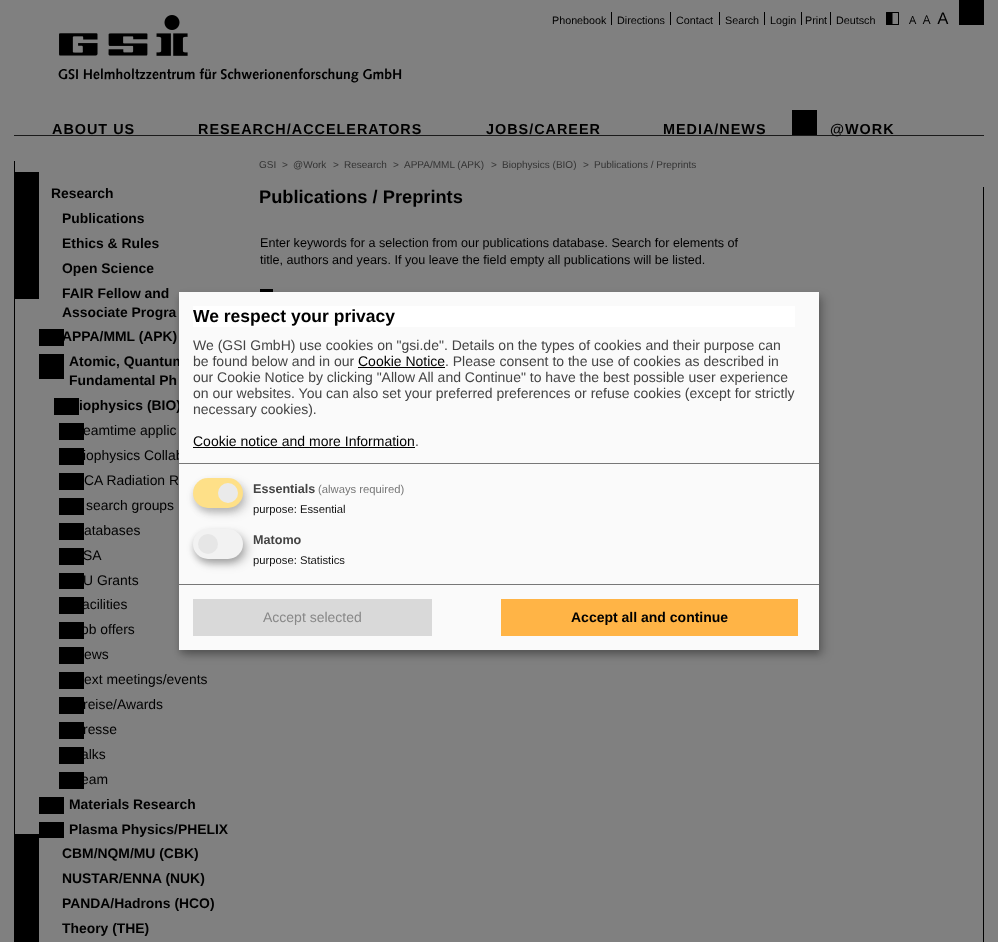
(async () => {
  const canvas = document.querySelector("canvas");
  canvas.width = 998;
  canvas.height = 942;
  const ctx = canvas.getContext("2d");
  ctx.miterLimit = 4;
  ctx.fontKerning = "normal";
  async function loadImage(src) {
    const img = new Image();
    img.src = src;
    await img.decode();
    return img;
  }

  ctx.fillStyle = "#808080";
  ctx.fillRect(0, 0, 998, 942);
  ctx.fillStyle = "#1a1a1a";
  ctx.fillRect(14, 135, 970, 1);
  ctx.drawImage(await loadImage("img/1.png"), 59, 15, 129, 41);
  ctx.drawImage(await loadImage("img/2.png"), 58, 68, 344, 15);
  for (const [x, y, w, h, color] of [
    [959, 0, 25, 25, "#000000"],
    [611, 12, 1, 13, "#000000"],
    [670, 12, 1, 13, "#000000"],
    [719, 12, 1, 13, "#000000"],
    [764, 12, 1, 13, "#000000"],
    [801, 12, 1, 13, "#000000"],
    [830, 12, 1, 13, "#000000"],
  ]) {
    ctx.fillStyle = color;
    ctx.fillRect(x, y, w, h);
  }
  ctx.drawImage(await loadImage("img/3.png"), 886, 12, 13, 13);
  ctx.drawImage(await loadImage("img/4.png"), 909, 16, 8, 8);
  ctx.drawImage(await loadImage("img/5.png"), 922, 15, 9, 9);
  ctx.drawImage(await loadImage("img/6.png"), 937, 12, 12, 12);
  for (const [x, y, w, h, color] of [
    [792, 110, 25, 25, "#000000"],
    [14, 161, 1, 781, "#000000"],
    [15, 172, 24, 127, "#000000"],
    [39, 329, 25, 17, "#000000"],
    [39, 354, 25, 25, "#000000"],
    [54, 398, 25, 17, "#000000"],
    [59, 423, 25, 17, "#000000"],
    [59, 448, 25, 17, "#000000"],
    [59, 473, 25, 17, "#000000"],
    [59, 498, 25, 17, "#000000"],
    [59, 523, 25, 17, "#000000"],
    [59, 548, 25, 17, "#000000"],
    [59, 573, 25, 16, "#000000"],
    [59, 597, 25, 17, "#000000"],
    [59, 622, 25, 17, "#000000"],
    [59, 647, 25, 17, "#000000"],
    [59, 672, 25, 17, "#000000"],
    [59, 697, 25, 17, "#000000"],
    [59, 722, 25, 17, "#000000"],
    [59, 747, 25, 17, "#000000"],
    [59, 772, 25, 17, "#000000"],
    [39, 797, 25, 17, "#000000"],
    [39, 822, 25, 16, "#000000"],
    [15, 834, 24, 108, "#000000"],
    [260, 289, 13, 3, "#000000"],
    [983, 187, 1, 755, "#000000"],
  ]) {
    ctx.fillStyle = color;
    ctx.fillRect(x, y, w, h);
  }
  ctx.fillStyle = "rgba(0, 0, 0, 0.19)";
  ctx.filter = "blur(5px)";
  ctx.beginPath();
  ctx.rect(184, 297, 640, 358);
  ctx.fill();
  ctx.filter = "none";
  ctx.fillStyle = "rgba(0, 0, 0, 0.2)";
  ctx.filter = "blur(3px)";
  ctx.beginPath();
  ctx.rect(179, 296, 640, 358);
  ctx.fill();
  ctx.filter = "none";
  ctx.font = "10.75px Liberation Sans";
  ctx.fillStyle = "#000000";
  for (const [text, x, y] of [
    ["Phonebook", 552, 24],
    ["Directions", 617, 24],
    ["Contact", 676, 24],
    ["Search", 725, 24],
    ["Login", 770, 24],
    ["Print", 805, 24],
    ["Deutsch", 836, 24],
  ]) {
    ctx.fillText(text, x, y);
  }
  ctx.letterSpacing = "1px";
  ctx.font = "bold 14.4px Liberation Sans";
  for (const [text, x, y] of [
    ["ABOUT US", 52, 134],
    ["RESEARCH/ACCELERATORS", 198, 134],
    ["JOBS/CAREER", 486, 134],
    ["MEDIA/NEWS", 663, 134],
    ["@WORK", 830, 134],
  ]) {
    ctx.fillText(text, x, y);
  }
  ctx.letterSpacing = "0px";
  ctx.font = "10px Liberation Sans";
  ctx.fillStyle = "#333333";
  for (const [text, x, y] of [
    ["GSI", 259, 168],
    [">", 282, 168],
    ["@Work", 293, 168],
    [">", 333, 168],
    ["Research", 344, 168],
    [">", 393, 168],
    ["APPA/MML (APK)", 404, 168],
    [">", 491, 168],
    ["Biophysics (BIO)", 502, 168],
    [">", 583, 168],
    ["Publications / Preprints", 594, 168],
  ]) {
    ctx.fillText(text, x, y);
  }
  ctx.font = "bold 13.9px Liberation Sans";
  ctx.fillStyle = "#000000";
  for (const [text, x, y] of [
    ["Research", 51, 198],
    ["Publications", 62, 223],
    ["Ethics & Rules", 62, 248],
    ["Open Science", 62, 273],
    ["FAIR Fellow and", 62, 298],
    ["Associate Progra", 62, 317],
    ["APPA/MML (APK)", 62, 341],
    ["Atomic, Quantum", 69, 366],
    ["Fundamental Ph", 69, 385],
    ["iophysics (BIO)", 79, 410],
  ]) {
    ctx.fillText(text, x, y);
  }
  ctx.font = "13.9px Liberation Sans";
  for (const [text, x, y] of [
    ["eamtime applic", 83, 435],
    ["iophysics Collab", 83, 460],
    ["CA Radiation R", 84, 485],
    ["search groups", 86, 510],
    ["atabases", 84, 535],
    ["SA", 83, 560],
    ["U Grants", 83, 585],
    ["acilities", 82, 609],
    ["ob offers", 81, 634],
    ["ews", 84, 659],
    ["ext meetings/events", 84, 684],
    ["reise/Awards", 83, 709],
    ["resse", 83, 734],
    ["alks", 81, 759],
    ["eam", 81, 784],
  ]) {
    ctx.fillText(text, x, y);
  }
  ctx.font = "bold 13.9px Liberation Sans";
  for (const [text, x, y] of [
    ["Materials Research", 69, 809],
    ["Plasma Physics/PHELIX", 69, 834],
    ["CBM/NQM/MU (CBK)", 62, 858],
    ["NUSTAR/ENNA (NUK)", 62, 883],
    ["PANDA/Hadrons (HCO)", 62, 908],
    ["Theory (THE)", 62, 933],
  ]) {
    ctx.fillText(text, x, y);
  }
  ctx.font = "bold 18.25px Liberation Sans";
  ctx.fillText("Publications / Preprints", 259, 203);
  ctx.font = "12.6px Liberation Sans";
  ctx.fillText("Enter keywords for a selection from our publications database. Search for elements of", 260, 247);
  ctx.fillText("title, authors and years. If you leave the field empty all publications will be listed.", 260, 264);
  for (const [x, y, w, h, color] of [
    [179, 292, 640, 358, "#fafafa"],
    [179, 463, 640, 1, "#777777"],
    [193, 306, 602, 21, "#ffffff"],
  ]) {
    ctx.fillStyle = color;
    ctx.fillRect(x, y, w, h);
  }
  ctx.font = "bold 17.5px Liberation Sans";
  ctx.fillStyle = "#000000";
  ctx.fillText("We respect your privacy", 193, 322);
  ctx.font = "14px Liberation Sans";
  ctx.fillStyle = "#444444";
  ctx.fillText("We (GSI GmbH) use cookies on \"gsi.de\". Details on the types of cookies and their purpose can", 193, 350);
  ctx.fillText("be found below and in our", 193, 366);
  ctx.fillStyle = "#000000";
  ctx.fillText("Cookie Notice", 358, 366);
  ctx.fillRect(358, 367, 87, 1);
  ctx.fillStyle = "#444444";
  for (const [text, x, y] of [
    [". Please consent to the use of cookies as described in", 445, 366],
    ["our Cookie Notice by clicking \"Allow All and Continue\" to have the best possible user experience", 193, 382],
    ["on our websites. You can also set your preferred preferences or refuse cookies (except for strictly", 193, 398],
    ["necessary cookies).", 193, 414],
  ]) {
    ctx.fillText(text, x, y);
  }
  ctx.fillStyle = "#000000";
  ctx.fillText("Cookie notice and more Information", 193, 446);
  ctx.fillStyle = "#444444";
  ctx.fillText(".", 415, 446);
  ctx.fillStyle = "#000000";
  ctx.fillRect(193, 447, 222, 1);
  ctx.fillStyle = "rgba(0, 0, 0, 0.15)";
  ctx.filter = "blur(5px)";
  ctx.beginPath();
  ctx.roundRect(198, 483, 50, 30, 15);
  ctx.fill();
  ctx.filter = "none";
  ctx.fillStyle = "rgba(50, 50, 50, 0.2)";
  ctx.filter = "blur(3px)";
  ctx.beginPath();
  ctx.roundRect(193, 482, 50, 30, 15);
  ctx.fill();
  ctx.filter = "none";
  ctx.fillStyle = "#fee088";
  ctx.beginPath();
  ctx.roundRect(193, 478, 50, 30, 15);
  ctx.fill();
  ctx.fillStyle = "#eaeaea";
  ctx.beginPath();
  ctx.arc(228, 493, 10, 0, Math.PI * 2);
  ctx.fill();
  ctx.font = "bold 12.6px Liberation Sans";
  ctx.fillStyle = "#444444";
  ctx.fillText("Essentials", 253, 493);
  ctx.font = "11.25px Liberation Sans";
  ctx.fillStyle = "#777777";
  ctx.fillText("(always required)", 318, 493);
  ctx.fillStyle = "#111111";
  ctx.fillText("purpose: Essential", 253, 513);
  ctx.fillStyle = "rgba(0, 0, 0, 0.19)";
  ctx.filter = "blur(5px)";
  ctx.beginPath();
  ctx.roundRect(198, 534, 50, 30, 15);
  ctx.fill();
  ctx.filter = "none";
  ctx.fillStyle = "rgba(0, 0, 0, 0.2)";
  ctx.filter = "blur(3px)";
  ctx.beginPath();
  ctx.roundRect(193, 533, 50, 30, 15);
  ctx.fill();
  ctx.filter = "none";
  ctx.fillStyle = "#f2f2f2";
  ctx.beginPath();
  ctx.roundRect(193, 529, 50, 30, 15);
  ctx.fill();
  ctx.fillStyle = "#e6e6e6";
  ctx.beginPath();
  ctx.arc(208, 544, 10, 0, Math.PI * 2);
  ctx.fill();
  ctx.font = "bold 12.6px Liberation Sans";
  ctx.fillStyle = "#444444";
  ctx.fillText("Matomo", 253, 544);
  ctx.font = "11.25px Liberation Sans";
  ctx.fillStyle = "#111111";
  ctx.fillText("purpose: Statistics", 253, 564);
  ctx.fillStyle = "#777777";
  ctx.fillRect(179, 584, 640, 1);
  ctx.fillStyle = "#d9d9d9";
  ctx.fillRect(193, 599, 239, 37);
  ctx.font = "14px Liberation Sans";
  ctx.fillStyle = "#888888";
  ctx.fillText("Accept selected", 263, 622);
  ctx.fillStyle = "#ffb446";
  ctx.fillRect(501, 599, 297, 37);
  ctx.font = "bold 14px Liberation Sans";
  ctx.fillStyle = "#000000";
  ctx.fillText("Accept all and continue", 571, 622);
})();
